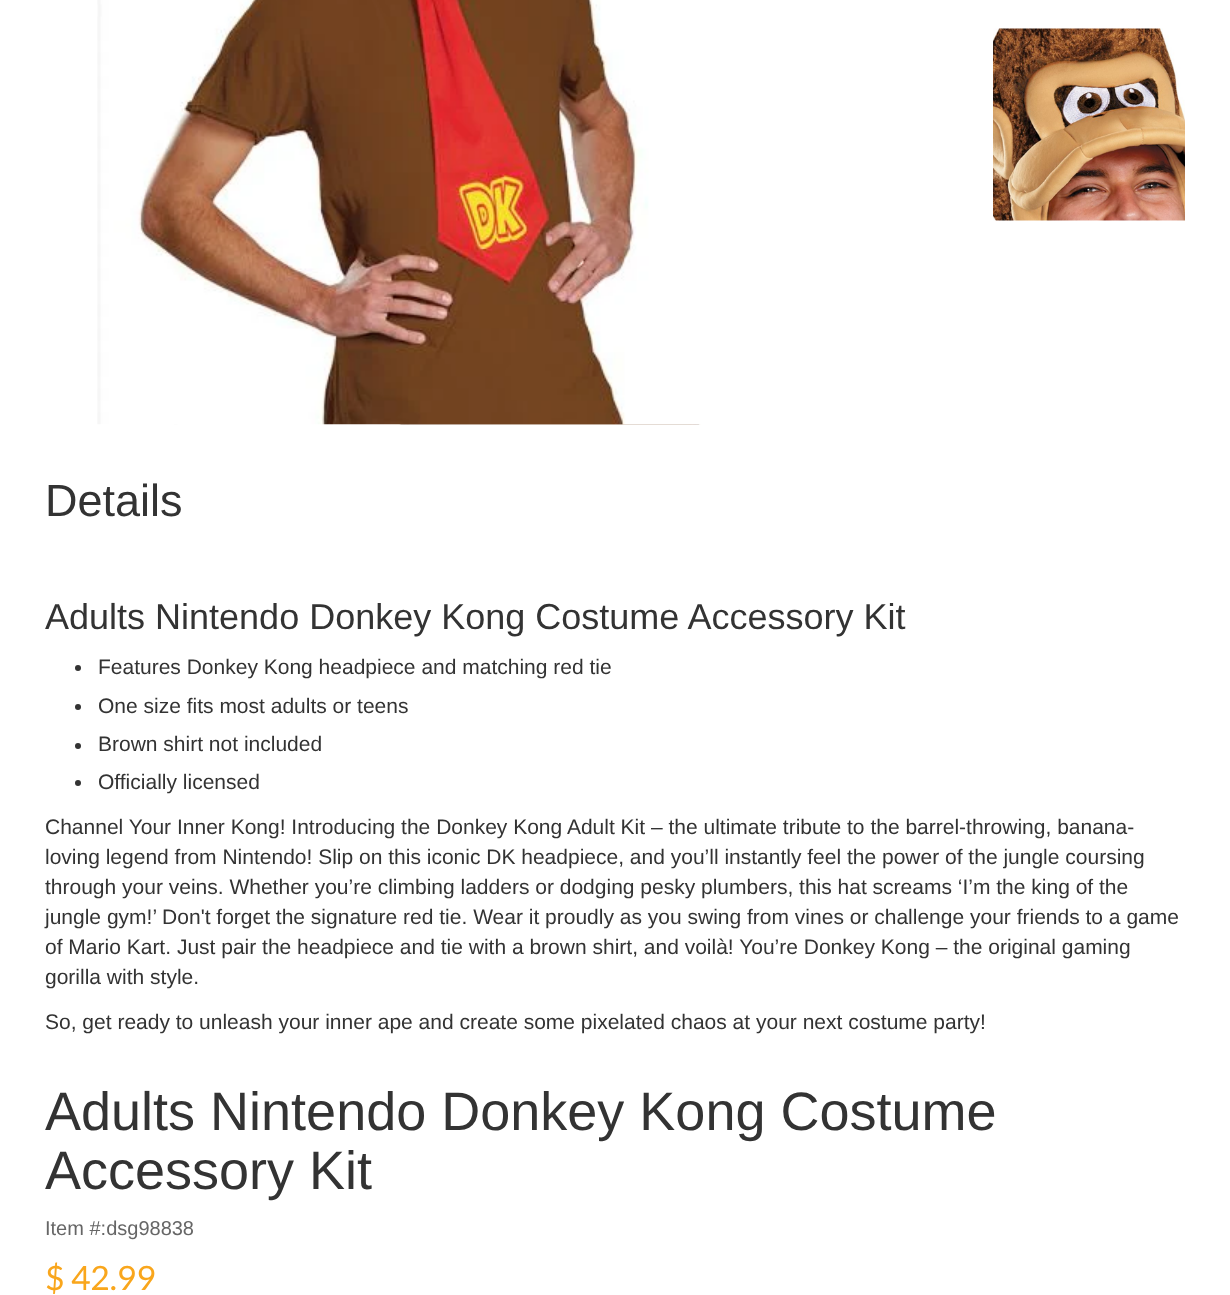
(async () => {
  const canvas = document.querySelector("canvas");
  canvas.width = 1230;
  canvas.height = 1295;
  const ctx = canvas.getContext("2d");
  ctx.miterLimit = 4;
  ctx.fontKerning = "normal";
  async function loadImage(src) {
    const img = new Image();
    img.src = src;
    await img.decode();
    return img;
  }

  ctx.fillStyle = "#ffffff";
  ctx.fillRect(0, 0, 1230, 1295);
  ctx.drawImage(await loadImage("img/2.png"), 174, 424, 551, 1);
  ctx.drawImage(await loadImage("img/1.png"), 97, 0, 628, 425);
  ctx.drawImage(await loadImage("img/3.png"), 993, 28, 192, 193);
  ctx.fillStyle = "#333333";
  ctx.beginPath();
  ctx.arc(78, 668, 3, 0, Math.PI * 2);
  ctx.fill();
  ctx.beginPath();
  ctx.arc(78, 707, 3, 0, Math.PI * 2);
  ctx.fill();
  ctx.beginPath();
  ctx.arc(78, 746, 3, 0, Math.PI * 2);
  ctx.fill();
  ctx.beginPath();
  ctx.arc(78, 783, 3, 0, Math.PI * 2);
  ctx.fill();
  ctx.font = "45px Liberation Sans";
  ctx.fillText("Details", 45, 516);
  ctx.font = "36px Liberation Sans";
  ctx.fillText("Adults Nintendo Donkey Kong Costume Accessory Kit", 45, 629);
  ctx.font = "21px Liberation Sans";
  for (const [text, x, y] of [
    ["Features Donkey Kong headpiece and matching red tie", 98, 674],
    ["One size fits most adults or teens", 98, 713],
    ["Brown shirt not included", 98, 751],
    ["Officially licensed", 98, 789],
    ["Channel Your Inner Kong! Introducing the Donkey Kong Adult Kit – the ultimate tribute to the barrel-throwing, banana-", 45, 834],
    ["loving legend from Nintendo! Slip on this iconic DK headpiece, and you’ll instantly feel the power of the jungle coursing", 45, 864],
    ["through your veins. Whether you’re climbing ladders or dodging pesky plumbers, this hat screams ‘I’m the king of the", 45, 894],
    ["jungle gym!’ Don't forget the signature red tie. Wear it proudly as you swing from vines or challenge your friends to a game", 45, 924],
    ["of Mario Kart. Just pair the headpiece and tie with a brown shirt, and voilà! You’re Donkey Kong – the original gaming", 45, 954],
    ["gorilla with style.", 45, 984],
    ["So, get ready to unleash your inner ape and create some pixelated chaos at your next costume party!", 45, 1029],
  ]) {
    ctx.fillText(text, x, y);
  }
  ctx.font = "54px Liberation Sans";
  ctx.fillText("Adults Nintendo Donkey Kong Costume", 45, 1130);
  ctx.fillText("Accessory Kit", 45, 1189);
  ctx.font = "20px Liberation Sans";
  ctx.fillStyle = "#666666";
  ctx.fillText("Item #:dsg98838", 45, 1235);
  ctx.font = "33.5px Lato";
  ctx.fillStyle = "#f9a61c";
  ctx.fillText("$ 42.99", 45, 1290);
})();
